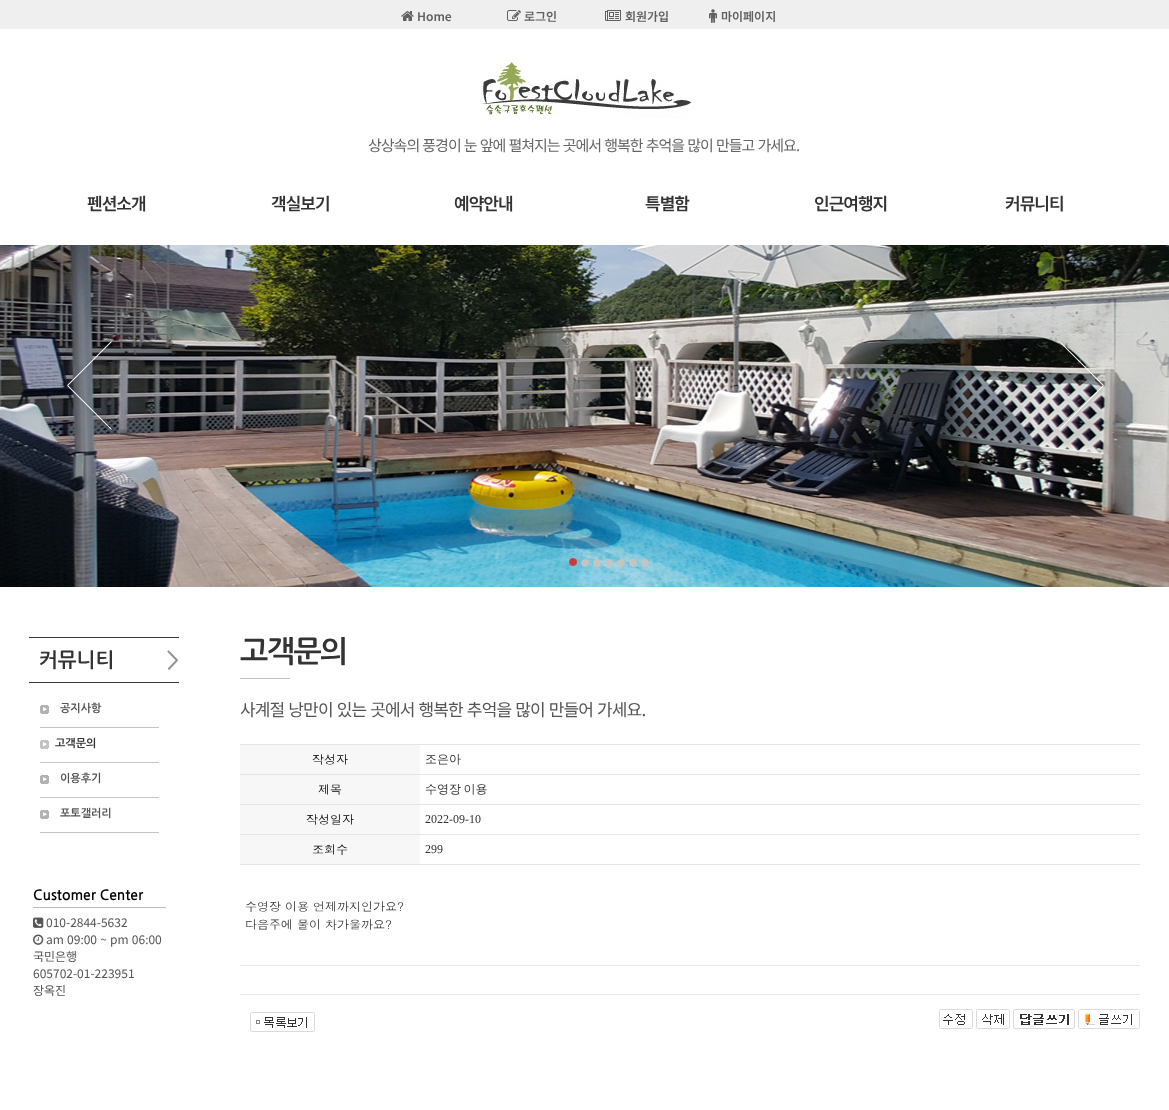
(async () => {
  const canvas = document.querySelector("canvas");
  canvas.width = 1169;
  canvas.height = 1110;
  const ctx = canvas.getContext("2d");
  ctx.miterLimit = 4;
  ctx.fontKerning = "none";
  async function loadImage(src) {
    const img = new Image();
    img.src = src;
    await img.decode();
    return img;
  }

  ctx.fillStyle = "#ffffff";
  ctx.fillRect(0, 0, 1169, 1110);
  ctx.fillStyle = "#efefef";
  ctx.fillRect(0, 0, 1169, 29);
  ctx.drawImage(await loadImage("img/1.png"), 401, 11, 13, 10);
  ctx.drawImage(await loadImage("img/2.png"), 507, 10, 14, 11);
  ctx.drawImage(await loadImage("img/3.png"), 605, 10, 16, 11);
  ctx.drawImage(await loadImage("img/4.png"), 709, 9, 8, 14);
  ctx.drawImage(await loadImage("img/5.png"), 481, 59, 210, 59);
  ctx.drawImage(await loadImage("img/6.png"), 0, 245, 1169, 342);
  ctx.drawImage(await loadImage("img/7.png"), 67, 341, 45, 89);
  ctx.drawImage(await loadImage("img/8.png"), 1059, 341, 46, 89);
  ctx.drawImage(await loadImage("img/9.png"), 569, 558, 8, 8);
  ctx.drawImage(await loadImage("img/10.png"), 581, 559, 8, 8);
  ctx.drawImage(await loadImage("img/11.png"), 593, 559, 8, 8);
  ctx.drawImage(await loadImage("img/12.png"), 605, 559, 8, 8);
  ctx.drawImage(await loadImage("img/13.png"), 617, 559, 8, 8);
  ctx.drawImage(await loadImage("img/14.png"), 629, 559, 8, 8);
  ctx.drawImage(await loadImage("img/15.png"), 641, 559, 8, 8);
  ctx.drawImage(await loadImage("img/16.png"), 167, 650, 11, 20);
  ctx.fillStyle = "#3a3a3a";
  ctx.fillRect(29, 637, 150, 1);
  ctx.fillRect(29, 682, 150, 1);
  ctx.drawImage(await loadImage("img/17.png"), 40, 705, 9, 9);
  ctx.fillStyle = "#c4c4c4";
  ctx.fillRect(40, 727, 119, 1);
  ctx.drawImage(await loadImage("img/18.png"), 40, 740, 9, 9);
  ctx.fillRect(40, 762, 119, 1);
  ctx.drawImage(await loadImage("img/17.png"), 40, 775, 9, 9);
  ctx.fillRect(40, 797, 119, 1);
  ctx.drawImage(await loadImage("img/17.png"), 40, 810, 9, 9);
  ctx.fillRect(40, 832, 119, 1);
  ctx.fillStyle = "#bbbbbb";
  ctx.fillRect(33, 907, 133, 1);
  ctx.drawImage(await loadImage("img/19.png"), 33, 917, 11, 11);
  ctx.drawImage(await loadImage("img/20.png"), 33, 934, 11, 11);
  for (const [x, y, w, h, color] of [
    [240, 678, 50, 1, "#c1c1c1"],
    [240, 744, 900, 1, "#e5e5e5"],
    [240, 745, 180, 29, "#f7f7f7"],
    [240, 774, 900, 1, "#e5e5e5"],
    [240, 775, 180, 29, "#f7f7f7"],
    [240, 804, 900, 1, "#e5e5e5"],
    [240, 805, 180, 29, "#f7f7f7"],
    [240, 834, 900, 1, "#e5e5e5"],
    [240, 835, 180, 29, "#f7f7f7"],
    [240, 864, 900, 1, "#e5e5e5"],
    [240, 965, 900, 1, "#e5e5e5"],
    [240, 994, 900, 1, "#e5e5e5"],
  ]) {
    ctx.fillStyle = color;
    ctx.fillRect(x, y, w, h);
  }
  ctx.drawImage(await loadImage("img/21.png"), 250, 1012, 65, 20);
  ctx.drawImage(await loadImage("img/22.png"), 939, 1009, 34, 20);
  ctx.drawImage(await loadImage("img/23.png"), 976, 1009, 34, 20);
  ctx.drawImage(await loadImage("img/24.png"), 1013, 1009, 62, 20);
  ctx.drawImage(await loadImage("img/25.png"), 1078, 1009, 62, 20);
  ctx.font = "600 12px Noto Sans KR";
  ctx.fillStyle = "#606060";
  for (const [text, x, y] of [
    ["Home", 417, 21],
    ["로그인", 524, 21],
    ["회원가입", 625, 21],
    ["마이페이지", 721, 21],
  ]) {
    ctx.fillText(text, x, y);
  }
  ctx.letterSpacing = "-1px";
  ctx.wordSpacing = "0.75px";
  ctx.font = "15px Noto Sans KR";
  ctx.fillStyle = "#666666";
  ctx.fillText("상상속의 풍경이 눈 앞에 펼쳐지는 곳에서 행복한 추억을 많이 만들고 가세요.", 368, 151);
  ctx.wordSpacing = "0px";
  ctx.font = "600 17px Noto Sans KR";
  ctx.fillStyle = "#333333";
  for (const [text, x, y] of [
    ["펜션소개", 87, 210],
    ["객실보기", 271, 210],
    ["예약안내", 454, 210],
    ["특별함", 645, 210],
    ["인근여행지", 814, 210],
    ["커뮤니티", 1005, 210],
  ]) {
    ctx.fillText(text, x, y);
  }
  ctx.letterSpacing = "0px";
  ctx.font = "bold 20px NanumGothic";
  ctx.fillText("커뮤니티", 39, 667);
  ctx.font = "bold 11px NanumGothic";
  ctx.fillStyle = "#555555";
  ctx.fillText("공지사항", 60, 712);
  ctx.fillStyle = "#333333";
  ctx.fillText("고객문의", 55, 747);
  ctx.fillStyle = "#555555";
  ctx.fillText("이용후기", 60, 782);
  ctx.fillText("포토갤러리", 60, 817);
  ctx.font = "bold 14px NanumGothic";
  ctx.fillStyle = "#000000";
  ctx.fillText("Customer Center", 33, 900);
  ctx.font = "12px Noto Sans KR";
  ctx.fillStyle = "#555555";
  ctx.fillText("010-2844-5632", 46, 927);
  ctx.wordSpacing = "0.5px";
  ctx.fillText("am 09:00 ~ pm 06:00", 46, 944);
  ctx.wordSpacing = "0px";
  for (const [text, x, y] of [
    ["국민은행", 33, 961],
    ["605702-01-223951", 33, 978],
    ["장옥진", 33, 995],
  ]) {
    ctx.fillText(text, x, y);
  }
  ctx.save();
  ctx.beginPath();
  ctx.rect(29, 637, 1111, 442);
  ctx.clip();
  ctx.letterSpacing = "-1.5px";
  ctx.font = "bold 30px NanumGothic";
  ctx.fillStyle = "#333333";
  ctx.fillText("고객문의", 240, 662);
  ctx.restore();
  ctx.letterSpacing = "-0.85px";
  ctx.wordSpacing = "1px";
  ctx.font = "17px Noto Sans KR";
  ctx.fillText("사계절 낭만이 있는 곳에서 행복한 추억을 많이 만들어 가세요.", 240, 716);
  ctx.letterSpacing = "0px";
  ctx.wordSpacing = "0px";
  ctx.font = "12px Dotum";
  ctx.fillStyle = "#000000";
  ctx.fillText("작성자", 312, 764);
  ctx.font = "500 12px WenQuanYi Zen Hei";
  ctx.fillStyle = "#333333";
  ctx.fillText("조은아", 425, 763);
  ctx.font = "12px Dotum";
  ctx.fillStyle = "#000000";
  ctx.fillText("제목", 318, 794);
  ctx.wordSpacing = "-1px";
  ctx.font = "500 12px WenQuanYi Zen Hei";
  ctx.fillStyle = "#333333";
  ctx.fillText("수영장 이용", 425, 793);
  ctx.wordSpacing = "0px";
  ctx.font = "12px Dotum";
  ctx.fillStyle = "#000000";
  ctx.fillText("작성일자", 306, 824);
  ctx.font = "12px Liberation Serif";
  ctx.fillStyle = "#333333";
  ctx.fillText("2022-09-10", 425, 823);
  ctx.font = "12px Dotum";
  ctx.fillStyle = "#000000";
  ctx.fillText("조회수", 312, 854);
  ctx.font = "12px Liberation Serif";
  ctx.fillStyle = "#333333";
  ctx.fillText("299", 425, 853);
  ctx.font = "12px Dotum";
  ctx.fillText("수영장 이용 언제까지인가요?", 245, 911);
  ctx.fillText("다음주에 물이 차가울까요?", 245, 929);
})();
